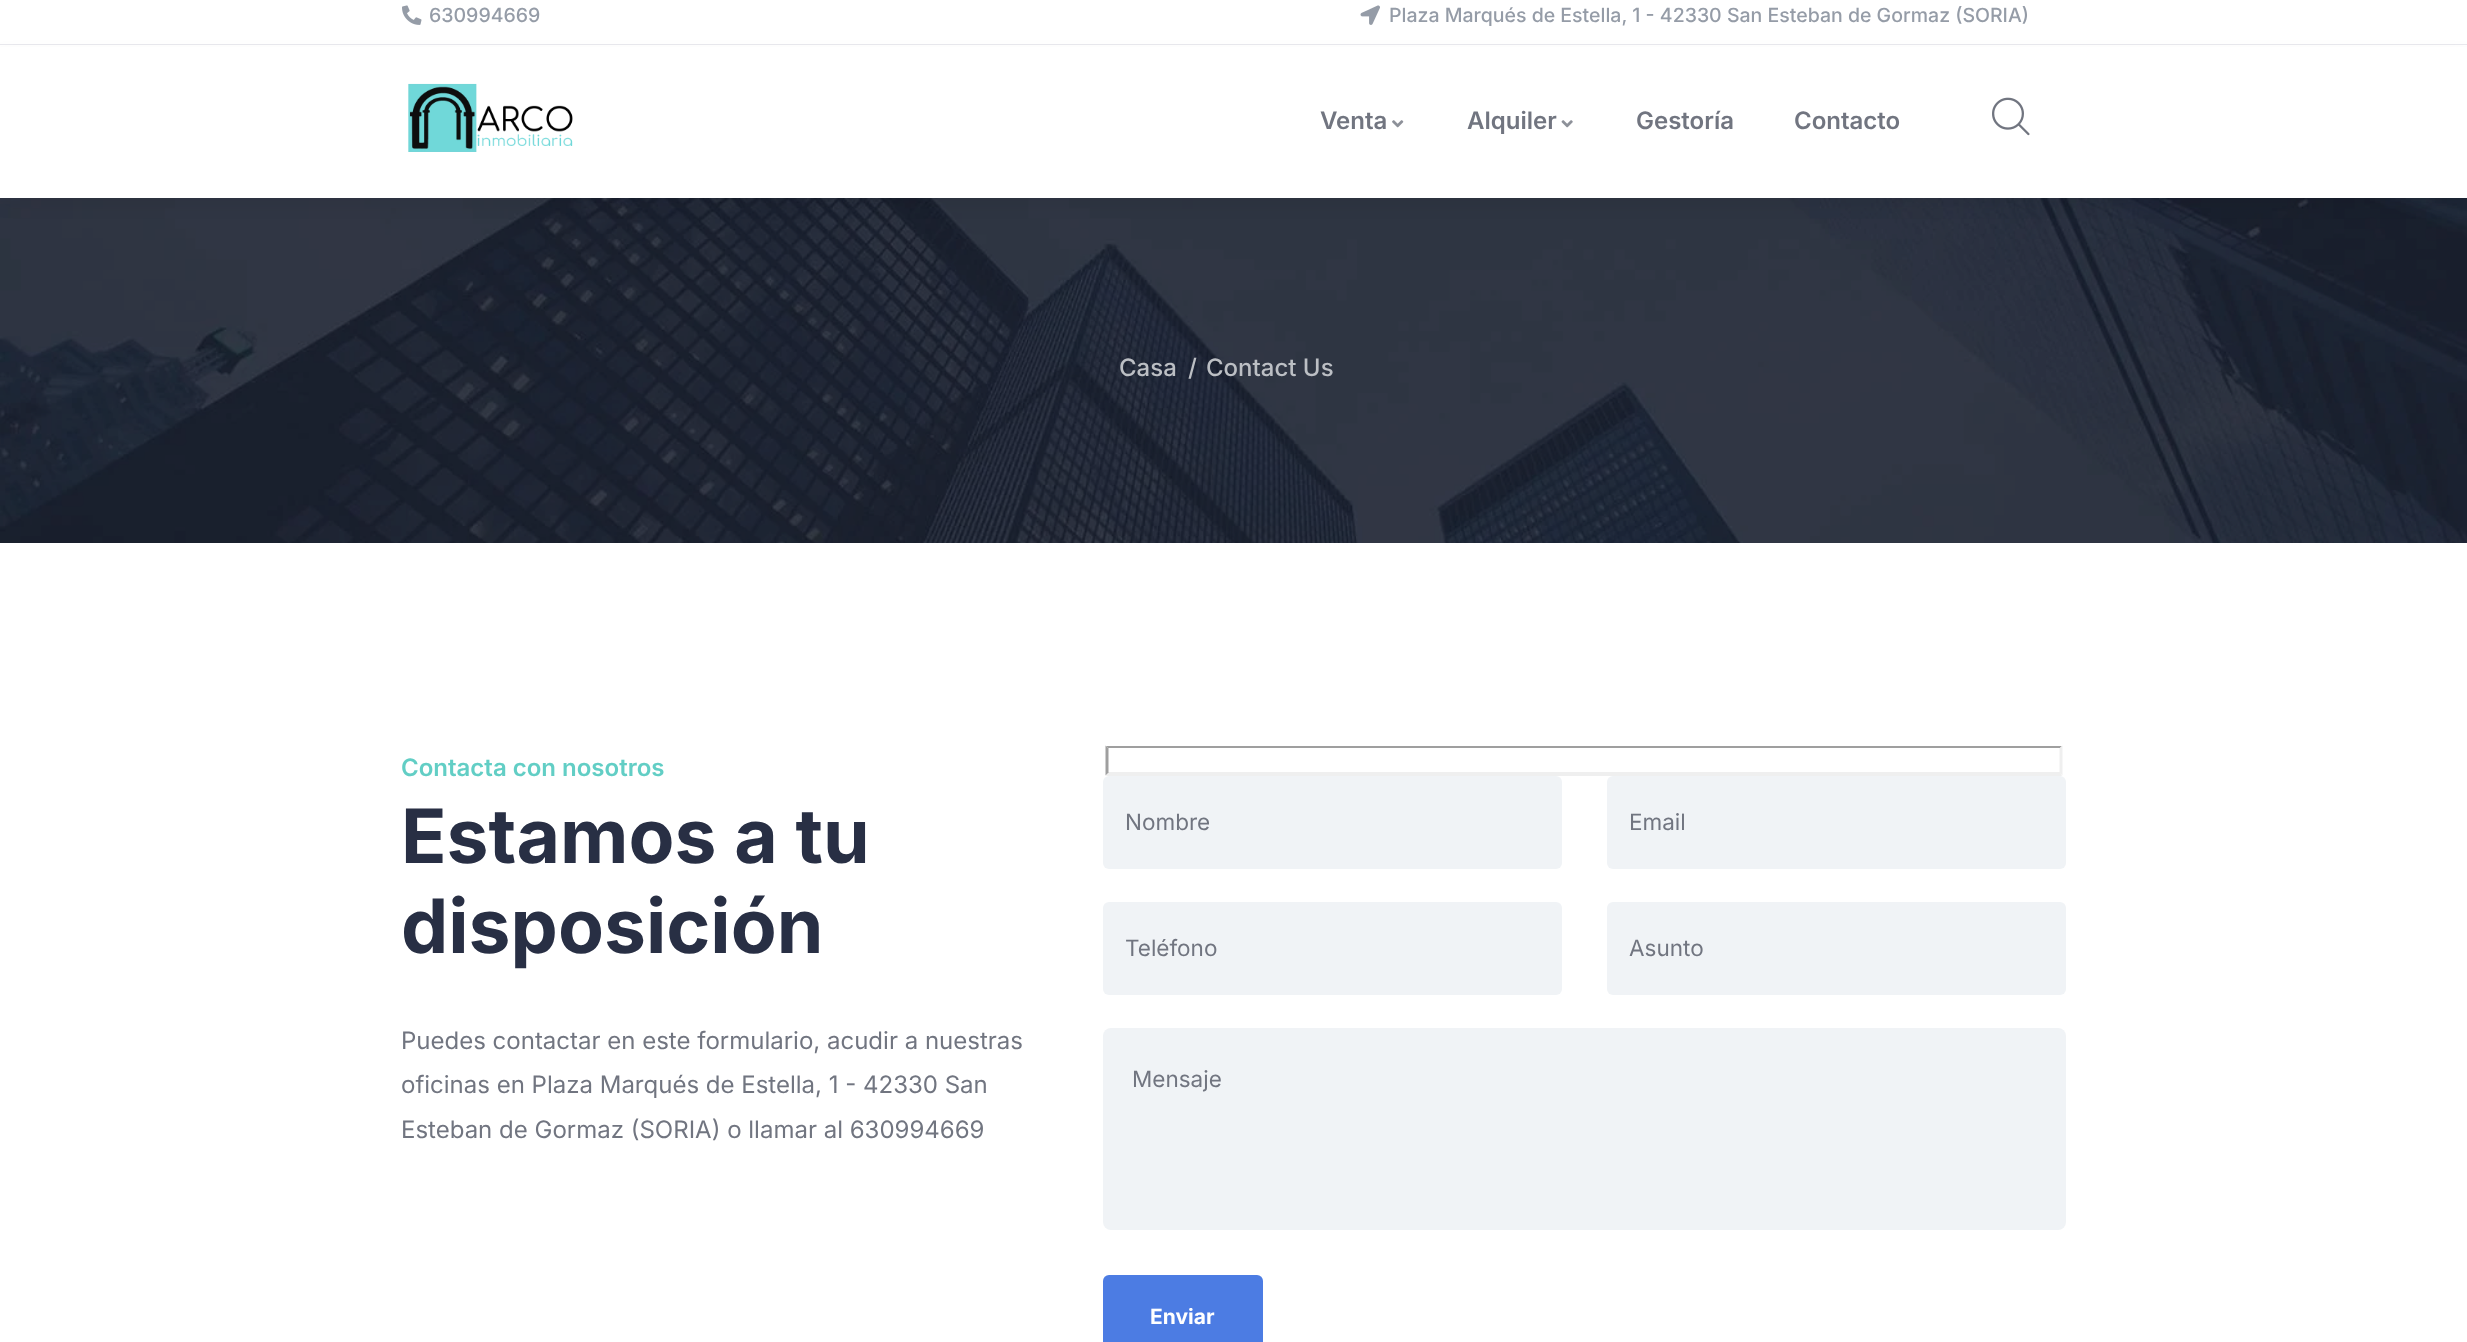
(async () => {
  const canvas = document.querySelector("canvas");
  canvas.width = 2467;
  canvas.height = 1342;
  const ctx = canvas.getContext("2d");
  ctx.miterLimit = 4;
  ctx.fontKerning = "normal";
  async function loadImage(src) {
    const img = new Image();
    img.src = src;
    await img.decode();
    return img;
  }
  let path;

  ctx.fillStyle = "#ffffff";
  ctx.fillRect(0, 0, 2467, 1342);
  ctx.fillStyle = "#e9e9ee";
  ctx.fillRect(0, 44, 2467, 1);
  ctx.drawImage(await loadImage("img/1.png"), 402, 5, 20, 20);
  ctx.drawImage(await loadImage("img/2.png"), 1360, 5, 20, 20);
  ctx.drawImage(await loadImage("img/7.png"), 0, 198, 2467, 345);
  ctx.fillStyle = "rgba(0, 0, 0, 0.05)";
  ctx.filter = "blur(7.5px)";
  ctx.beginPath();
  ctx.rect(0, 53, 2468, 153);
  ctx.fill();
  ctx.filter = "none";
  ctx.fillStyle = "#ffffff";
  ctx.fillRect(0, 47, 2467, 151);
  ctx.drawImage(await loadImage("img/3.png"), 408, 83, 165, 69);
  ctx.drawImage(await loadImage("img/4.png"), 1392, 120, 12, 8);
  ctx.drawImage(await loadImage("img/5.png"), 1561, 120, 12, 8);
  ctx.drawImage(await loadImage("img/6.png"), 1992, 97, 38, 39);
  ctx.fillStyle = "#9f9f9f";
  path = new Path2D("M1106 746H2062L2060 748H1108Z");
  ctx.fill(path);
  ctx.fillStyle = "#efefef";
  path = new Path2D("M2062.5 745.5V775.5L2059.5 772.5V748.5Z");
  ctx.fill(path);
  path = new Path2D("M2062 776H1106L1108 772H2060Z");
  ctx.fill(path);
  ctx.fillStyle = "#9f9f9f";
  path = new Path2D("M1105.5 775.5V745.5L1108.5 748.5V772.5Z");
  ctx.fill(path);
  ctx.fillStyle = "#f0f3f6";
  ctx.beginPath();
  ctx.roundRect(1103, 776, 459, 93, 6);
  ctx.fill();
  ctx.beginPath();
  ctx.roundRect(1607, 776, 459, 93, 6);
  ctx.fill();
  ctx.beginPath();
  ctx.roundRect(1103, 902, 459, 93, 6);
  ctx.fill();
  ctx.beginPath();
  ctx.roundRect(1607, 902, 459, 93, 6);
  ctx.fill();
  ctx.beginPath();
  ctx.roundRect(1103, 1028, 963, 202, 8);
  ctx.fill();
  ctx.fillStyle = "#4c7ce3";
  ctx.beginPath();
  ctx.roundRect(1103, 1275, 160, 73, 6);
  ctx.fill();
  ctx.font = "500 19.5px Inter";
  ctx.fillStyle = "#959ca7";
  ctx.fillText("630994669", 429, 22);
  ctx.fillText("Plaza Marqués de Estella, 1 - 42330 San Esteban de Gormaz (SORIA)", 1389, 22);
  ctx.font = "600 24px Inter";
  ctx.fillStyle = "#717580";
  for (const [text, x, y] of [
    ["Venta", 1320, 129],
    ["Alquiler", 1467, 129],
    ["Gestoría", 1636, 129],
    ["Contacto", 1794, 129],
  ]) {
    ctx.fillText(text, x, y);
  }
  ctx.font = "500 24px Inter";
  ctx.fillStyle = "#bcbfc4";
  for (const [text, x, y] of [
    ["Casa", 1119, 376],
    ["/", 1188, 376],
    ["Contact Us", 1206, 376],
  ]) {
    ctx.fillText(text, x, y);
  }
  ctx.font = "600 24px Inter";
  ctx.fillStyle = "#62cec5";
  ctx.fillText("Contacta con nosotros", 401, 776);
  ctx.font = "bold 75px Inter";
  ctx.fillStyle = "#282f44";
  ctx.fillText("Estamos a tu", 401, 863);
  ctx.fillText("disposición", 401, 953);
  ctx.font = "24px Inter";
  ctx.fillStyle = "#717580";
  for (const [text, x, y] of [
    ["Puedes contactar en este formulario, acudir a nuestras", 401, 1049],
    ["oficinas en Plaza Marqués de Estella, 1 - 42330 San", 401, 1093],
    ["Esteban de Gormaz (SORIA) o llamar al 630994669", 401, 1138],
  ]) {
    ctx.fillText(text, x, y);
  }
  ctx.font = "22.5px Inter";
  for (const [text, x, y] of [
    ["Nombre", 1125, 830],
    ["Email", 1629, 830],
    ["Teléfono", 1125, 956],
    ["Asunto", 1629, 956],
    ["Mensaje", 1132, 1087],
  ]) {
    ctx.fillText(text, x, y);
  }
  ctx.font = "bold 21px Inter";
  ctx.fillStyle = "#ffffff";
  ctx.fillText("Enviar", 1150, 1324);
})();
